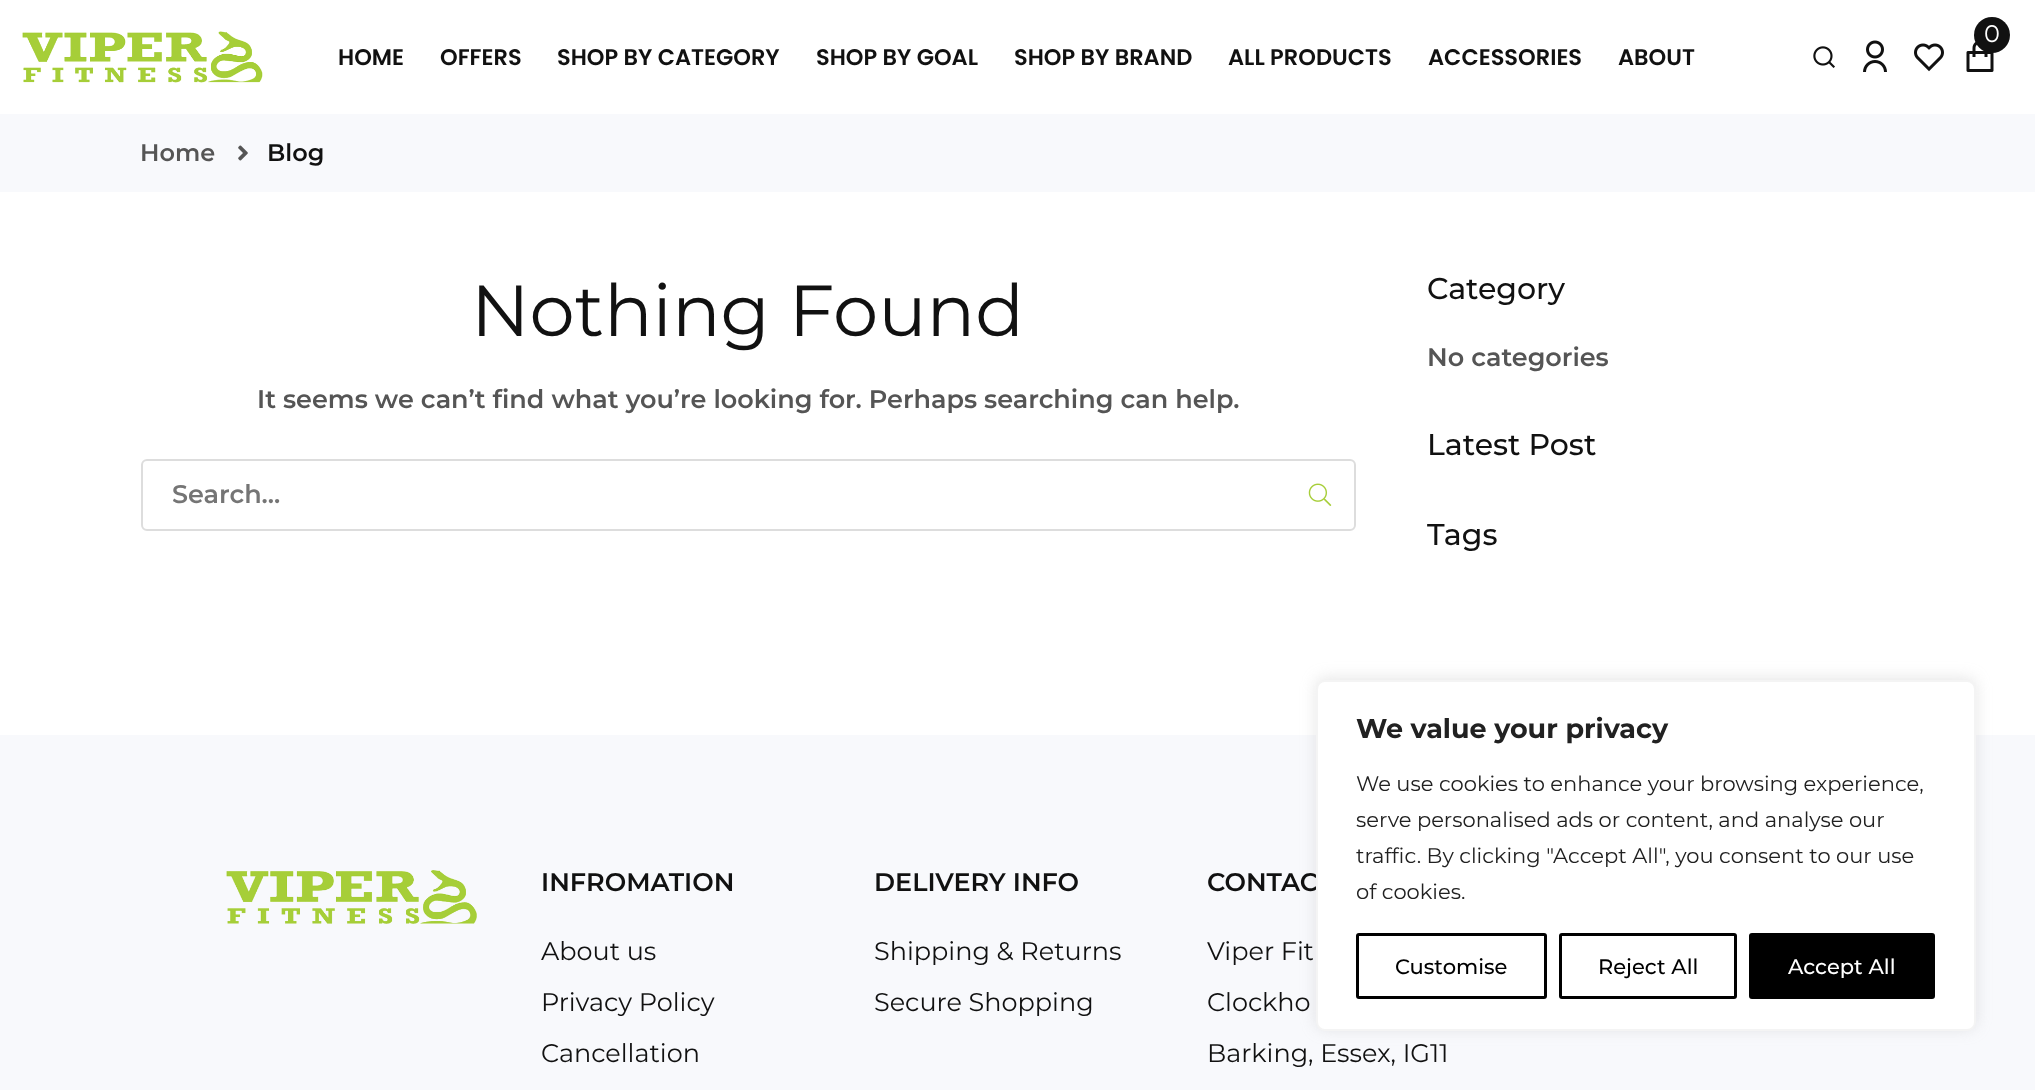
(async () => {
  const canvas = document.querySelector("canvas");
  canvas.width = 2035;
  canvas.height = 1090;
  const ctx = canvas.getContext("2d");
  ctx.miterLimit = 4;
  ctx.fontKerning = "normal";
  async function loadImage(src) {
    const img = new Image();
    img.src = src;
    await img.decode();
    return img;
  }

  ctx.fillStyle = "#ffffff";
  ctx.fillRect(0, 0, 2035, 1090);
  ctx.drawImage(await loadImage("img/1.png"), 1966, 41, 28, 31);
  ctx.fillStyle = "#111111";
  ctx.beginPath();
  ctx.arc(1992, 35, 18, 0, Math.PI * 2);
  ctx.fill();
  ctx.drawImage(await loadImage("img/2.png"), 1813, 46, 22, 22);
  ctx.drawImage(await loadImage("img/3.png"), 1863, 40, 24, 32);
  ctx.drawImage(await loadImage("img/4.png"), 1914, 43, 30, 29);
  ctx.drawImage(await loadImage("img/5.png"), 22, 31, 241, 52);
  ctx.fillStyle = "#f8f9fc";
  ctx.fillRect(0, 114, 2035, 78);
  ctx.drawImage(await loadImage("img/6.png"), 238, 145, 10, 16);
  ctx.beginPath();
  ctx.roundRect(142, 460, 1213, 70, 5);
  ctx.strokeStyle = "#dddddd";
  ctx.lineWidth = 2;
  ctx.stroke();
  ctx.drawImage(await loadImage("img/7.png"), 1308, 483, 24, 23);
  ctx.fillRect(0, 735, 2035, 355);
  ctx.drawImage(await loadImage("img/8.png"), 226, 870, 251, 54);
  ctx.fillStyle = "rgba(172, 171, 171, 0.3)";
  ctx.filter = "blur(7.5px)";
  ctx.beginPath();
  ctx.roundRect(1316, 678, 660, 351, 9);
  ctx.fill();
  ctx.filter = "none";
  ctx.font = "24px Montserrat";
  ctx.fillStyle = "#ffffff";
  ctx.fillText("0", 1984, 42);
  ctx.font = "600 22.5px Poppins";
  ctx.fillStyle = "#111111";
  for (const [text, x, y] of [
    ["HOME", 338, 65],
    ["OFFERS", 440, 65],
    ["SHOP BY CATEGORY", 557, 65],
    ["SHOP BY GOAL", 816, 65],
    ["SHOP BY BRAND", 1014, 65],
    ["ALL PRODUCTS", 1228, 65],
    ["ACCESSORIES", 1428, 65],
    ["ABOUT", 1618, 65],
  ]) {
    ctx.fillText(text, x, y);
  }
  ctx.font = "600 24px Montserrat";
  ctx.fillStyle = "#555555";
  ctx.fillText("Home", 140, 161);
  ctx.fillStyle = "#111111";
  ctx.fillText("Blog", 267, 161);
  ctx.font = "72px Montserrat";
  ctx.fillText("Nothing Found", 471, 336);
  ctx.font = "600 25.5px Montserrat";
  ctx.fillStyle = "#555555";
  ctx.fillText("It seems we can’t find what you’re looking for. Perhaps searching can help.", 257, 408);
  ctx.fillStyle = "#757575";
  ctx.fillText("Search...", 172, 503);
  ctx.font = "500 30px Montserrat";
  ctx.fillStyle = "#111111";
  ctx.fillText("Category", 1427, 299);
  ctx.font = "600 25.5px Montserrat";
  ctx.fillStyle = "#555555";
  ctx.fillText("No categories", 1427, 366);
  ctx.font = "500 30px Montserrat";
  ctx.fillStyle = "#111111";
  ctx.fillText("Latest Post", 1427, 455);
  ctx.fillText("Tags", 1427, 545);
  ctx.font = "600 25.5px Montserrat";
  ctx.fillText("INFROMATION", 541, 891);
  ctx.font = "25.5px Montserrat";
  for (const [text, x, y] of [
    ["About us", 541, 960],
    ["Privacy Policy", 541, 1011],
    ["Cancellation", 541, 1062],
  ]) {
    ctx.fillText(text, x, y);
  }
  ctx.font = "600 25.5px Montserrat";
  ctx.fillText("DELIVERY INFO", 874, 891);
  ctx.font = "25.5px Montserrat";
  ctx.fillText("Shipping & Returns", 874, 960);
  ctx.fillText("Secure Shopping", 874, 1011);
  ctx.font = "600 25.5px Montserrat";
  ctx.fillText("CONTAC", 1207, 891);
  ctx.font = "25.5px Montserrat";
  for (const [text, x, y] of [
    ["Viper Fit", 1207, 960],
    ["Clockho", 1207, 1011],
    ["Barking, Essex, IG11", 1207, 1062],
  ]) {
    ctx.fillText(text, x, y);
  }
  ctx.fillStyle = "#ffffff";
  ctx.beginPath();
  ctx.roundRect(1317, 681, 658, 349, 8);
  ctx.fill();
  ctx.strokeStyle = "#f4f4f4";
  ctx.stroke();
  ctx.font = "bold 27px Montserrat";
  ctx.fillStyle = "#212121";
  ctx.fillText("We value your privacy", 1356, 738);
  ctx.font = "21px Montserrat";
  for (const [text, x, y] of [
    ["We use cookies to enhance your browsing experience,", 1356, 791],
    ["serve personalised ads or content, and analyse our", 1356, 827],
    ["traffic. By clicking \"Accept All\", you consent to our use", 1356, 863],
    ["of cookies.", 1356, 899],
  ]) {
    ctx.fillText(text, x, y);
  }
  ctx.beginPath();
  ctx.roundRect(1357.5, 934.5, 188, 63, 1.5);
  ctx.strokeStyle = "#000000";
  ctx.lineWidth = 3;
  ctx.stroke();
  ctx.font = "500 21px Montserrat";
  ctx.fillStyle = "#000000";
  ctx.fillText("Customise", 1395, 974);
  ctx.beginPath();
  ctx.roundRect(1560.5, 934.5, 175, 63, 1.5);
  ctx.stroke();
  ctx.fillText("Reject All", 1598, 974);
  ctx.beginPath();
  ctx.roundRect(1750.5, 934.5, 183, 63, 1.5);
  ctx.fill();
  ctx.stroke();
  ctx.fillStyle = "#ffffff";
  ctx.fillText("Accept All", 1788, 974);
})();
